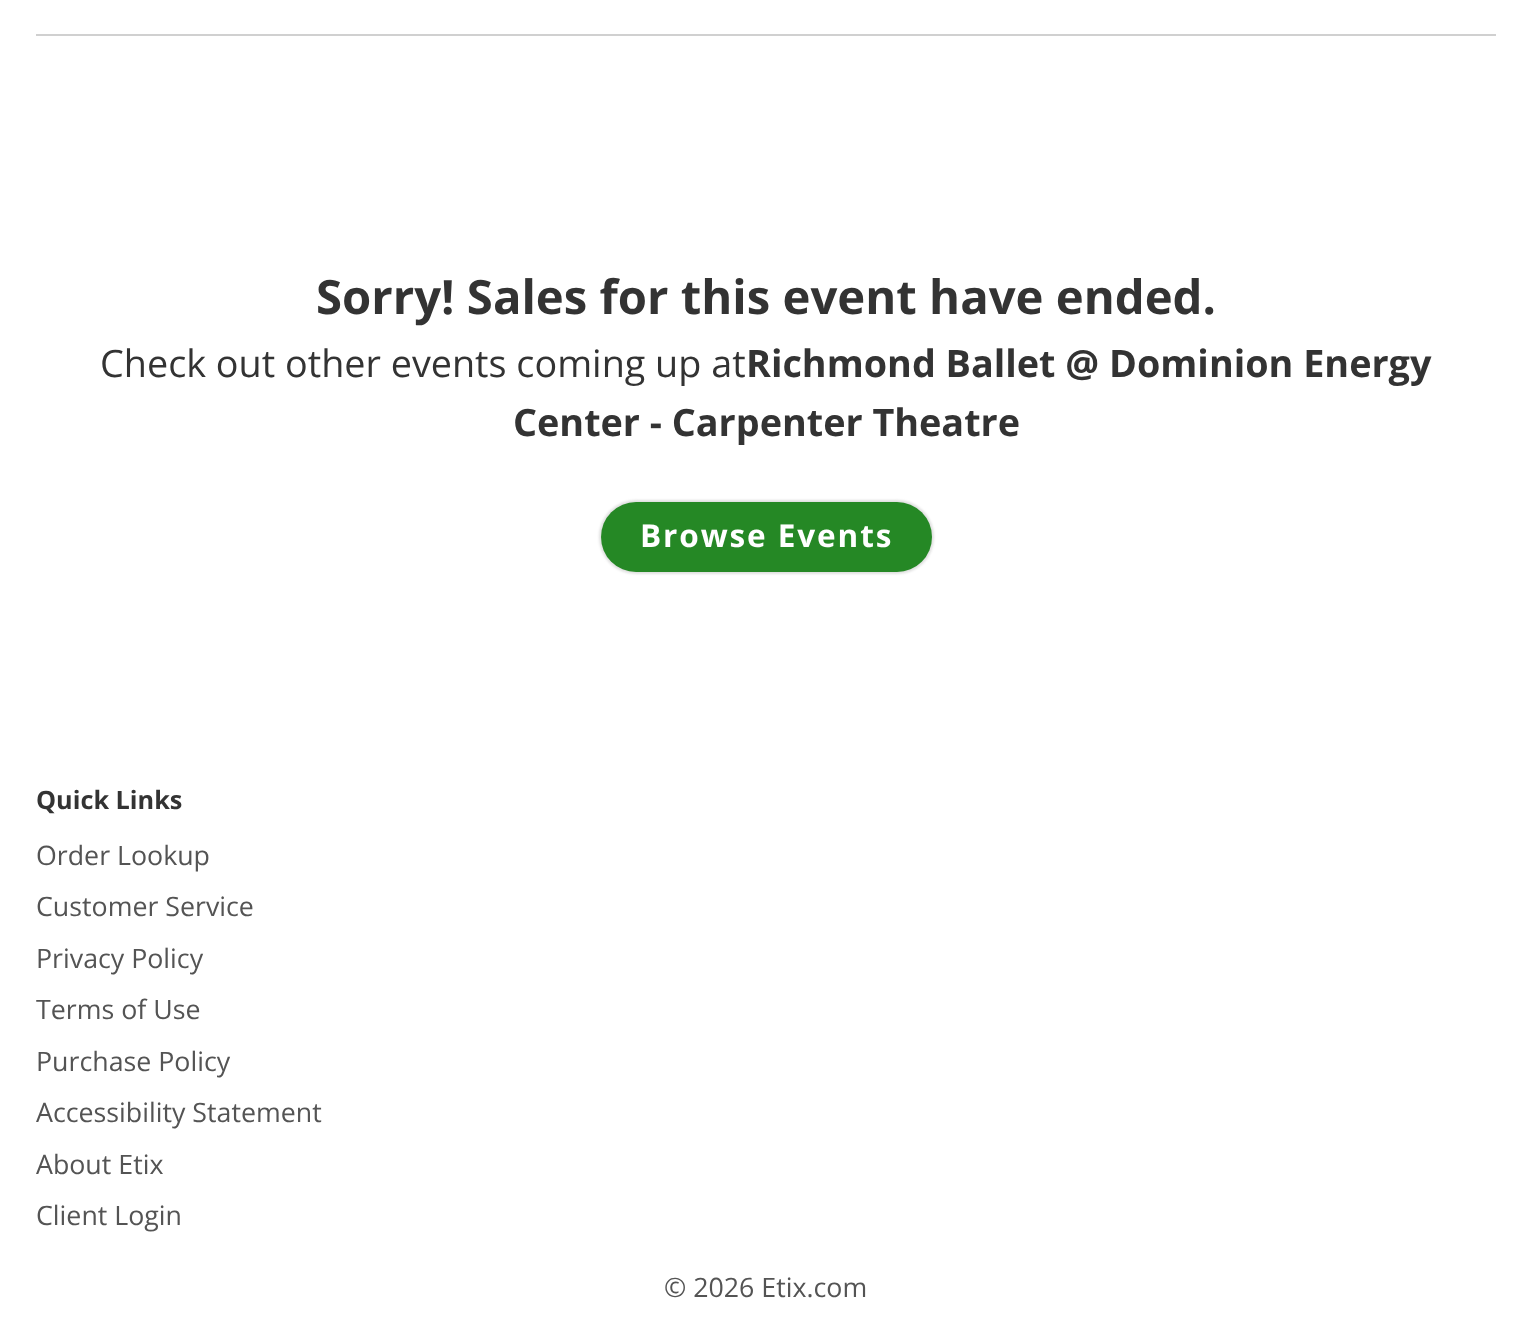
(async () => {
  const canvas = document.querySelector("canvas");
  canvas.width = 1531;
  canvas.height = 1342;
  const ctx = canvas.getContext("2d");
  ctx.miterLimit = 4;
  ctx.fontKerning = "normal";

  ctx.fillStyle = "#ffffff";
  ctx.fillRect(0, 0, 1531, 1342);
  ctx.fillStyle = "#d0d0d0";
  ctx.fillRect(36, 34, 1460, 2);
  ctx.fillStyle = "#e0e0e0";
  ctx.filter = "blur(1px)";
  ctx.beginPath();
  ctx.roundRect(599, 500, 335, 74, 37);
  ctx.fill();
  ctx.filter = "none";
  ctx.fillStyle = "#258825";
  ctx.beginPath();
  ctx.roundRect(601, 502, 331, 70, 35);
  ctx.fill();
  ctx.font = "bold 47.25px Open Sans";
  ctx.fillStyle = "#333333";
  ctx.fillText("Sorry! Sales for this event have ended.", 316, 314);
  ctx.font = "37.75px Open Sans";
  ctx.fillText("Check out other events coming up at", 100, 377);
  ctx.font = "bold 37.75px Open Sans";
  ctx.fillText("Richmond Ballet @ Dominion Energy", 746, 377);
  ctx.fillText("Center - Carpenter Theatre", 513, 436);
  ctx.letterSpacing = "1.9px";
  ctx.font = "bold 31.5px Open Sans";
  ctx.fillStyle = "#ffffff";
  ctx.fillText("Browse Events", 640, 547);
  ctx.letterSpacing = "0px";
  ctx.font = "bold 25.25px Open Sans";
  ctx.fillStyle = "#333333";
  ctx.fillText("Quick Links", 36, 809);
  ctx.font = "26.75px Open Sans";
  ctx.fillStyle = "#545454";
  for (const [text, x, y] of [
    ["Order Lookup", 36, 865],
    ["Customer Service", 36, 916],
    ["Privacy Policy", 36, 968],
    ["Terms of Use", 36, 1019],
    ["Purchase Policy", 36, 1071],
    ["Accessibility Statement", 36, 1122],
    ["About Etix", 36, 1174],
    ["Client Login", 36, 1225],
    ["© 2026 Etix.com", 664, 1297],
  ]) {
    ctx.fillText(text, x, y);
  }
})();
